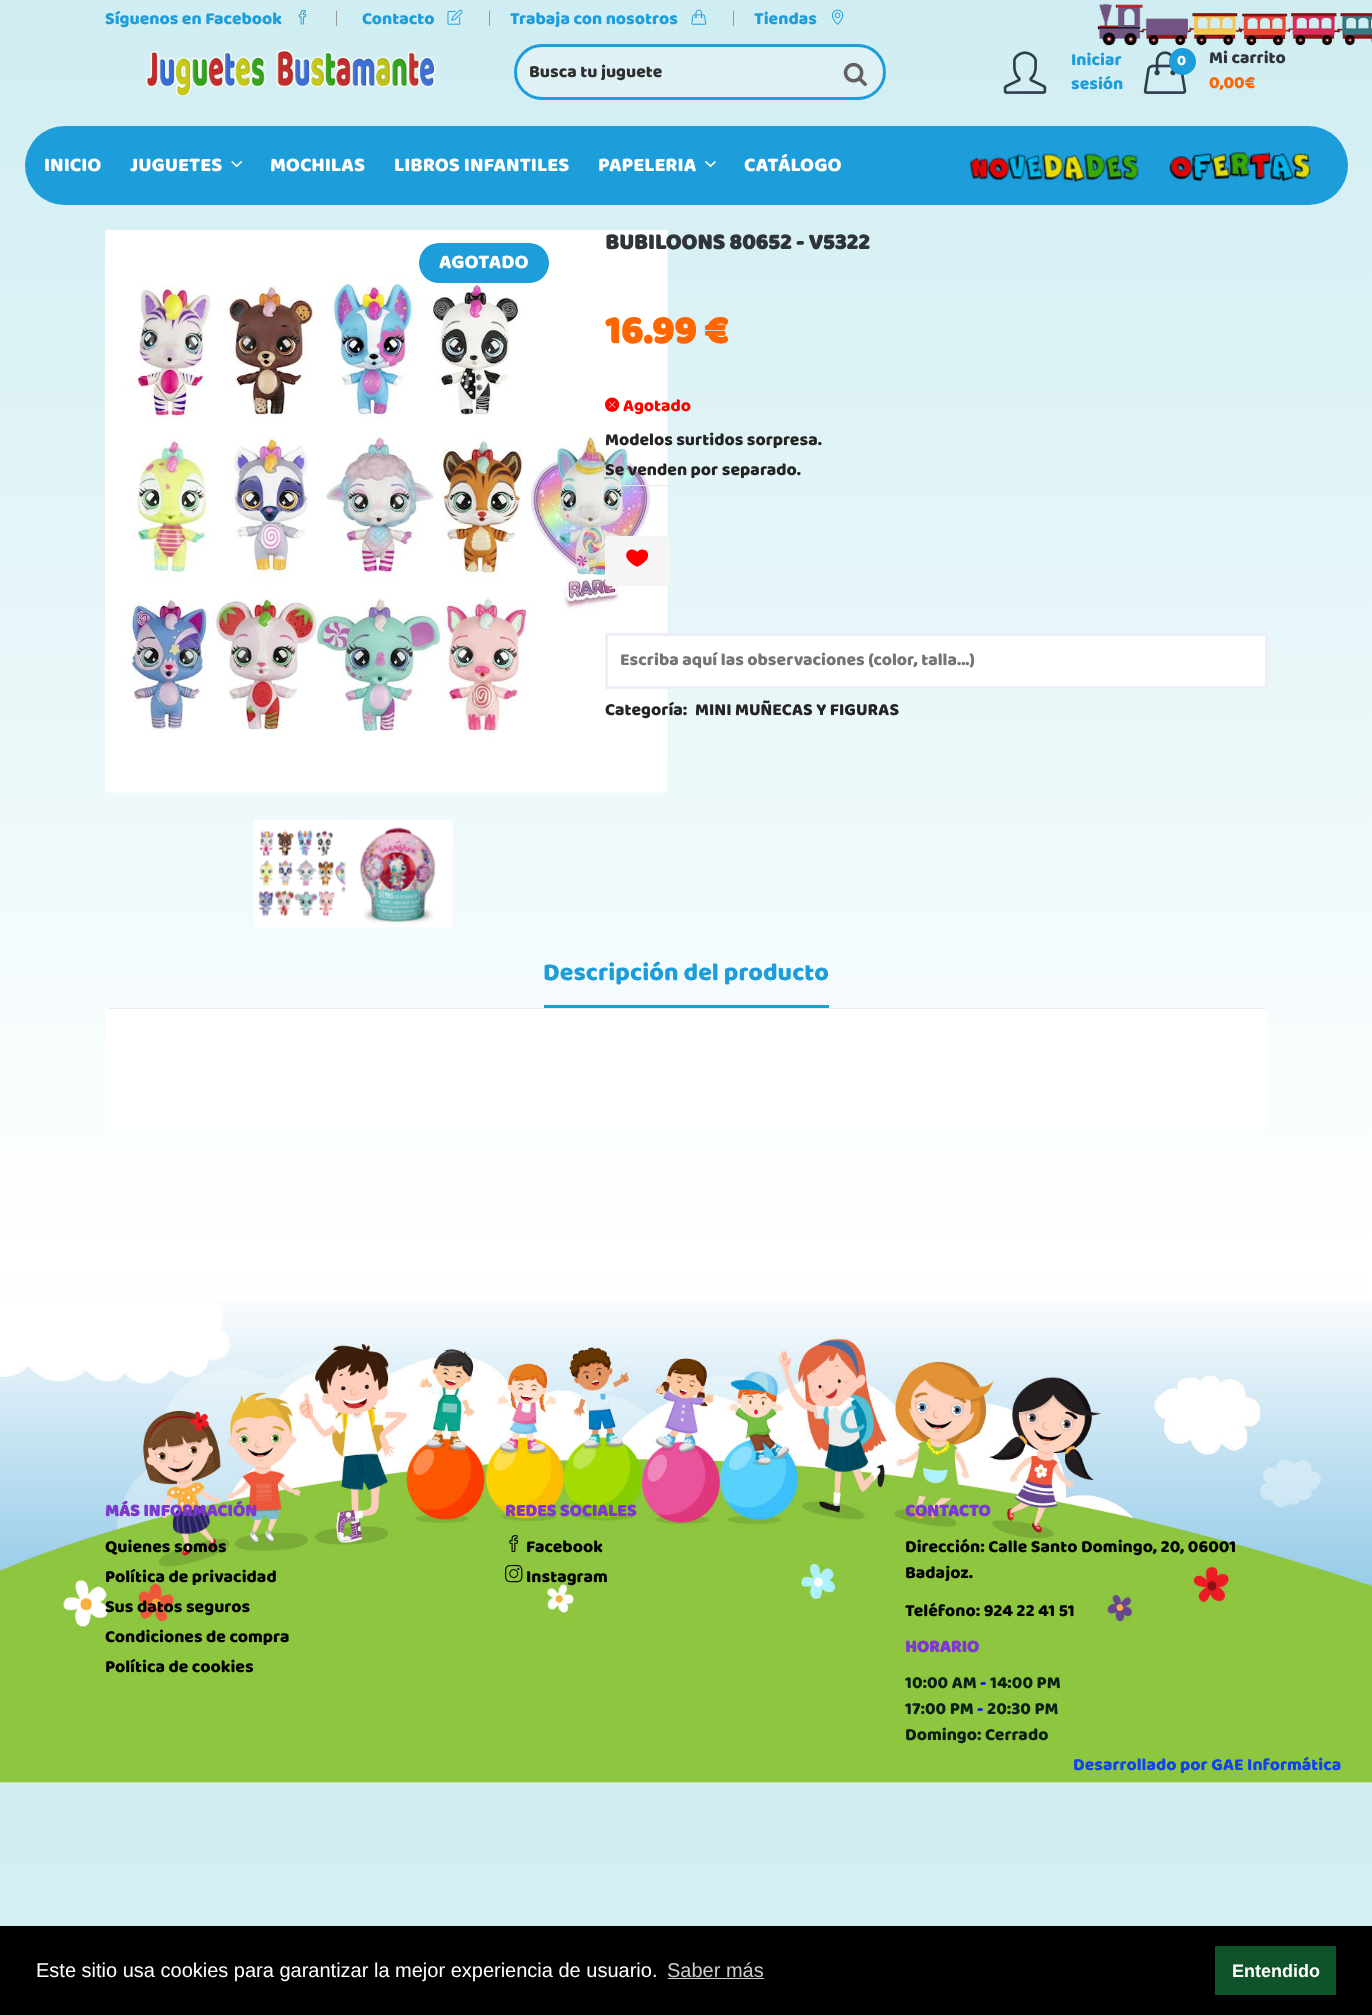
(async () => {
  const canvas = document.querySelector("canvas");
  canvas.width = 1372;
  canvas.height = 2015;
  const ctx = canvas.getContext("2d");
  ctx.miterLimit = 4;
  ctx.fontKerning = "normal";
  async function loadImage(src) {
    const img = new Image();
    img.src = src;
    await img.decode();
    return img;
  }
  let gradient;

  ctx.fillStyle = "#ffffff";
  ctx.fillRect(0, 0, 1372, 2015);
  gradient = ctx.createLinearGradient(686, 0, 686, 1783);
  gradient.addColorStop(0, "#cfedf2");
  gradient.addColorStop(0.7, "#ffffff");
  gradient.addColorStop(1, "#fcfcfc");
  ctx.fillStyle = gradient;
  ctx.fillRect(0, 0, 1372, 1783);
  gradient = ctx.createLinearGradient(686, 1783, 686, 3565);
  gradient.addColorStop(0, "#cfedf2");
  gradient.addColorStop(0.7, "#ffffff");
  gradient.addColorStop(1, "#fcfcfc");
  ctx.fillStyle = gradient;
  ctx.fillRect(0, 1783, 1372, 143);
  ctx.drawImage(await loadImage("img/1.png"), 298, 9, 9, 16);
  ctx.fillStyle = "#999999";
  ctx.fillRect(336, 11, 1, 15);
  ctx.drawImage(await loadImage("img/2.png"), 447, 9, 16, 16);
  ctx.fillRect(489, 11, 1, 15);
  ctx.drawImage(await loadImage("img/3.png"), 691, 9, 16, 16);
  ctx.fillRect(733, 11, 1, 15);
  ctx.drawImage(await loadImage("img/4.png"), 831, 9, 13, 16);
  ctx.drawImage(await loadImage("img/5.png"), 1097, 3, 275, 43);
  ctx.drawImage(await loadImage("img/6.png"), 145, 49, 291, 47);
  ctx.drawImage(await loadImage("img/7.png"), 843, 62, 24, 25);
  ctx.fillStyle = "rgba(255, 255, 255, 0.28)";
  ctx.beginPath();
  ctx.roundRect(515.5, 45.5, 369, 53, 26.5);
  ctx.fill();
  ctx.strokeStyle = "#1d9dda";
  ctx.lineWidth = 3;
  ctx.stroke();
  ctx.drawImage(await loadImage("img/8.png"), 1003, 51, 44, 43);
  ctx.drawImage(await loadImage("img/9.png"), 1143, 51, 44, 43);
  ctx.fillStyle = "#1d9dda";
  ctx.beginPath();
  ctx.arc(1182.5, 61.5, 13.5, 0, Math.PI * 2);
  ctx.fill();
  ctx.beginPath();
  ctx.roundRect(25, 126, 1323, 79, 39.5);
  ctx.fill();
  ctx.drawImage(await loadImage("img/10.png"), 231, 161, 12, 7);
  ctx.drawImage(await loadImage("img/11.png"), 705, 161, 11, 7);
  ctx.drawImage(await loadImage("img/12.png"), 969, 153, 170, 29);
  ctx.drawImage(await loadImage("img/13.png"), 1168, 152, 143, 30);
  ctx.drawImage(await loadImage("img/14.png"), 105, 230, 563, 563);
  ctx.beginPath();
  ctx.roundRect(419, 243, 130, 40, 20);
  ctx.fill();
  ctx.drawImage(await loadImage("img/15.png"), 253, 819, 108, 109);
  ctx.drawImage(await loadImage("img/16.png"), 344, 819, 109, 109);
  ctx.drawImage(await loadImage("img/17.png"), 605, 397, 15, 15);
  ctx.fillStyle = "#ebebeb";
  ctx.fillRect(605, 485, 663, 1);
  ctx.fillStyle = "#f5f5f5";
  ctx.beginPath();
  ctx.roundRect(605, 536, 65, 50, 4);
  ctx.fill();
  ctx.drawImage(await loadImage("img/18.png"), 626, 549, 23, 18);
  ctx.fillStyle = "#ffffff";
  ctx.fillRect(667, 636, 598, 50);
  ctx.strokeStyle = "#eceff8";
  ctx.strokeRect(606.5, 634.5, 660, 53);
  ctx.fillStyle = "#1d9dda";
  ctx.fillRect(544, 1005, 285, 3);
  ctx.fillStyle = "#ffffff";
  ctx.beginPath();
  ctx.roundRect(105, 1008, 1163, 121, 6);
  ctx.fill();
  ctx.fillStyle = "#ebebeb";
  ctx.fillRect(109, 1008, 1156, 1);
  ctx.drawImage(await loadImage("img/19.png"), 0, 1301, 1372, 482);
  ctx.drawImage(await loadImage("img/20.png"), 509, 1535, 10, 18);
  ctx.drawImage(await loadImage("img/21.png"), 505, 1564, 18, 19);
  for (const [x, y, w, h, color] of [
    [0, 1926, 1372, 89, "#000000"],
    [668, 1978, 96, 1, "#cccccc"],
    [1215, 1946, 121, 49, "#0f532a"],
  ]) {
    ctx.fillStyle = color;
    ctx.fillRect(x, y, w, h);
  }
  ctx.font = "17.5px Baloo";
  ctx.fillStyle = "#1d9dda";
  for (const [text, x, y] of [
    ["Síguenos en Facebook", 105, 24],
    ["Contacto", 362, 24],
    ["Trabaja con nosotros", 510, 24],
    ["Tiendas", 754, 24],
  ]) {
    ctx.fillText(text, x, y);
  }
  ctx.fillStyle = "#2f2f2f";
  ctx.fillText("Busca tu juguete", 529, 77);
  ctx.fillStyle = "#1d9dda";
  ctx.fillText("Iniciar", 1071, 65);
  ctx.fillText("sesión", 1071, 89);
  ctx.font = "15px Baloo";
  ctx.fillStyle = "#ffffff";
  ctx.fillText("0", 1177, 65);
  ctx.font = "17.5px Baloo";
  ctx.fillStyle = "#2f333a";
  ctx.fillText("Mi carrito", 1209, 63);
  ctx.fillStyle = "#ff6600";
  ctx.fillText("0,00€", 1209, 88);
  ctx.font = "20px Baloo";
  ctx.fillStyle = "#ffffff";
  for (const [text, x, y] of [
    ["INICIO", 44, 171],
    ["JUGUETES", 130, 171],
    ["MOCHILAS", 270, 171],
    ["LIBROS INFANTILES", 394, 171],
    ["PAPELERIA", 598, 171],
    ["CATÁLOGO", 744, 171],
    ["AGOTADO", 439, 268],
  ]) {
    ctx.fillText(text, x, y);
  }
  ctx.font = "bold 22.5px Baloo";
  ctx.fillStyle = "#2f333a";
  ctx.fillText("BUBILOONS 80652 - V5322", 605, 249);
  ctx.font = "bold 40px Baloo";
  ctx.fillStyle = "#ff6600";
  ctx.fillText("16.99 €", 605, 343);
  ctx.font = "17.5px Baloo";
  ctx.fillStyle = "#ff0000";
  ctx.fillText("Agotado", 623, 411);
  ctx.fillStyle = "#242424";
  ctx.fillText("Modelos surtidos sorpresa.", 605, 445);
  ctx.fillText("Se venden por separado.", 605, 475);
  ctx.fillStyle = "#757575";
  ctx.fillText("Escriba aquí las observaciones (color, talla...)", 620, 665);
  ctx.fillStyle = "#242424";
  ctx.fillText("Categoría:", 605, 715);
  ctx.fillText("MINI MUÑECAS Y FIGURAS", 695, 715);
  ctx.font = "25px Baloo";
  ctx.fillStyle = "#1d9dda";
  ctx.fillText("Descripción del producto", 543, 980);
  ctx.font = "bold 17.5px Baloo";
  ctx.fillStyle = "#7e37d0";
  ctx.fillText("MÁS INFORMACIÓN", 105, 1516);
  ctx.font = "17.5px Baloo";
  ctx.fillStyle = "#000000";
  for (const [text, x, y] of [
    ["Quienes somos", 105, 1552],
    ["Política de privacidad", 105, 1582],
    ["Sus datos seguros", 105, 1612],
    ["Condiciones de compra", 105, 1642],
    ["Política de cookies", 105, 1672],
  ]) {
    ctx.fillText(text, x, y);
  }
  ctx.font = "bold 17.5px Baloo";
  ctx.fillStyle = "#7e37d0";
  ctx.fillText("REDES SOCIALES", 505, 1516);
  ctx.font = "17.5px Baloo";
  ctx.fillStyle = "#000000";
  ctx.fillText("Facebook", 526, 1552);
  ctx.fillText("Instagram", 526, 1582);
  ctx.font = "bold 17.5px Baloo";
  ctx.fillStyle = "#7e37d0";
  ctx.fillText("CONTACTO", 905, 1516);
  ctx.font = "17.5px Baloo";
  ctx.fillStyle = "#000000";
  for (const [text, x, y] of [
    ["Dirección: Calle Santo Domingo, 20, 06001", 905, 1552],
    ["Badajoz.", 905, 1578],
    ["Teléfono: 924 22 41 51", 905, 1616],
  ]) {
    ctx.fillText(text, x, y);
  }
  ctx.font = "bold 17.5px Baloo";
  ctx.fillStyle = "#7e37d0";
  ctx.fillText("HORARIO", 905, 1652);
  ctx.font = "17.5px Baloo";
  ctx.fillStyle = "#0b2014";
  ctx.fillText("10:00 AM", 905, 1688);
  ctx.fillStyle = "#0000ff";
  ctx.fillText("-", 980, 1688);
  ctx.fillStyle = "#0b2014";
  ctx.fillText("14:00 PM", 990, 1688);
  ctx.fillText("17:00 PM", 905, 1714);
  ctx.fillStyle = "#0000ff";
  ctx.fillText("-", 977, 1714);
  ctx.fillStyle = "#0b2014";
  ctx.fillText("20:30 PM", 987, 1714);
  ctx.fillText("Domingo: Cerrado", 905, 1740);
  ctx.fillStyle = "#1242f0";
  ctx.fillText("Desarrollado por GAE Informática", 1073, 1770);
  ctx.font = "20px Liberation Sans";
  ctx.fillStyle = "#ffffff";
  ctx.fillText("Este sitio usa cookies para garantizar la mejor experiencia de usuario.", 36, 1977);
  ctx.fillStyle = "#cccccc";
  ctx.fillText("Saber más", 667, 1977);
  ctx.font = "bold 18px Liberation Sans";
  ctx.fillStyle = "#ffffff";
  ctx.fillText("Entendido", 1232, 1977);
})();
